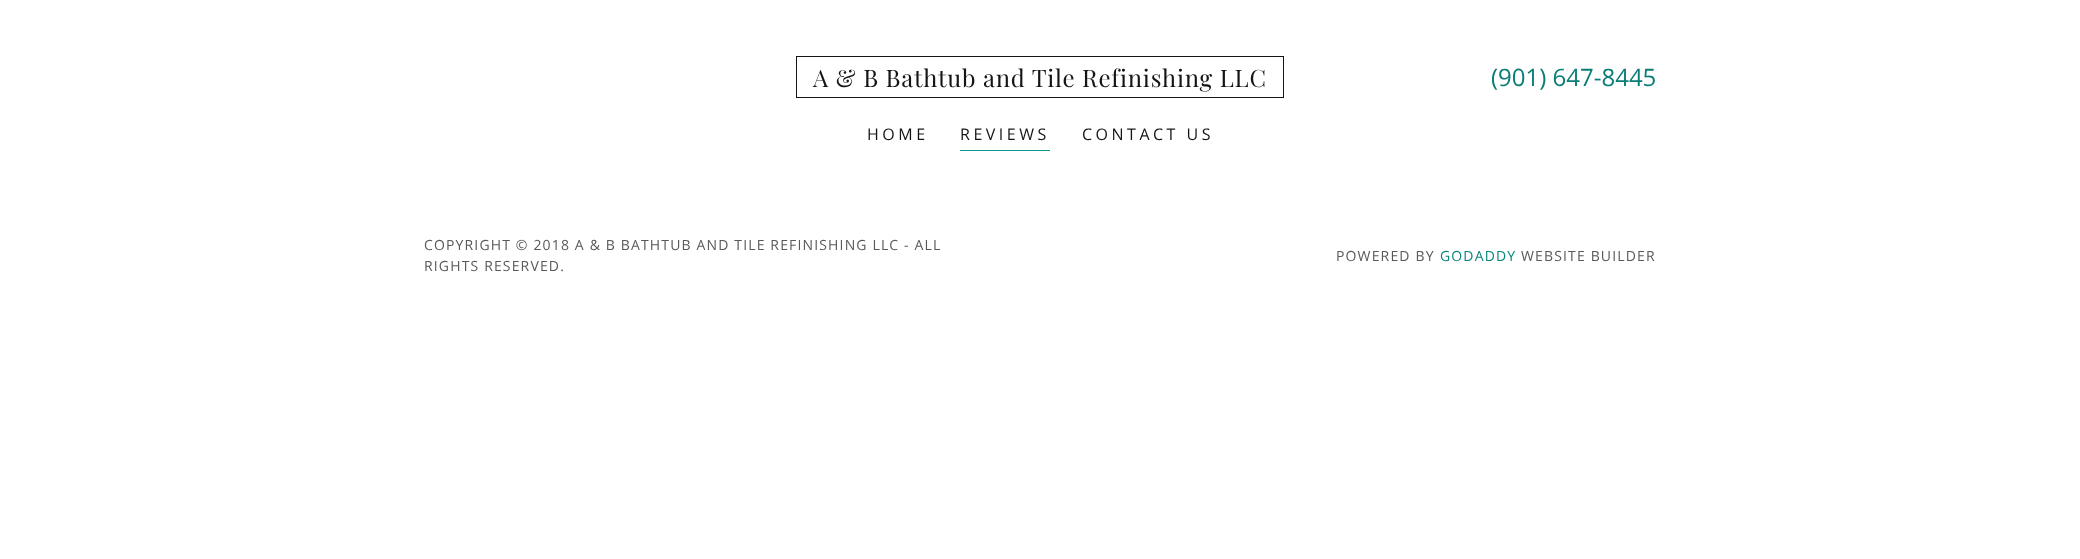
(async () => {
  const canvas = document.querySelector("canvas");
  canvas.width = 2080;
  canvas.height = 559;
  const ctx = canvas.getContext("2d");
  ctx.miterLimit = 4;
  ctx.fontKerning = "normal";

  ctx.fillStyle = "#ffffff";
  ctx.fillRect(0, 0, 2080, 559);
  ctx.strokeStyle = "#151515";
  ctx.strokeRect(796.5, 56.5, 487, 41);
  ctx.fillStyle = "#079991";
  ctx.fillRect(960, 150, 90, 1);
  ctx.letterSpacing = "0.75px";
  ctx.font = "24px Playfair Display";
  ctx.fillStyle = "#151515";
  ctx.fillText("A & B Bathtub and Tile Refinishing LLC", 813, 87);
  ctx.letterSpacing = "0px";
  ctx.font = "24px Open Sans";
  ctx.fillStyle = "#097d76";
  ctx.fillText("(901) 647-8445", 1491, 86);
  ctx.letterSpacing = "3.5px";
  ctx.font = "16px Open Sans";
  ctx.fillStyle = "#151515";
  for (const [text, x, y] of [
    ["HOME", 867, 140],
    ["REVIEWS", 960, 140],
    ["CONTACT US", 1082, 140],
  ]) {
    ctx.fillText(text, x, y);
  }
  ctx.letterSpacing = "1.15px";
  ctx.font = "14px Open Sans";
  ctx.fillStyle = "#595959";
  for (const [text, x, y] of [
    ["COPYRIGHT © 2018 A & B BATHTUB AND TILE REFINISHING LLC - ALL", 424, 250],
    ["RIGHTS RESERVED.", 424, 271],
    ["POWERED BY", 1336, 261],
  ]) {
    ctx.fillText(text, x, y);
  }
  ctx.fillStyle = "#09857d";
  ctx.fillText("GODADDY", 1440, 261);
  ctx.fillStyle = "#595959";
  ctx.fillText("WEBSITE BUILDER", 1521, 261);
})();
